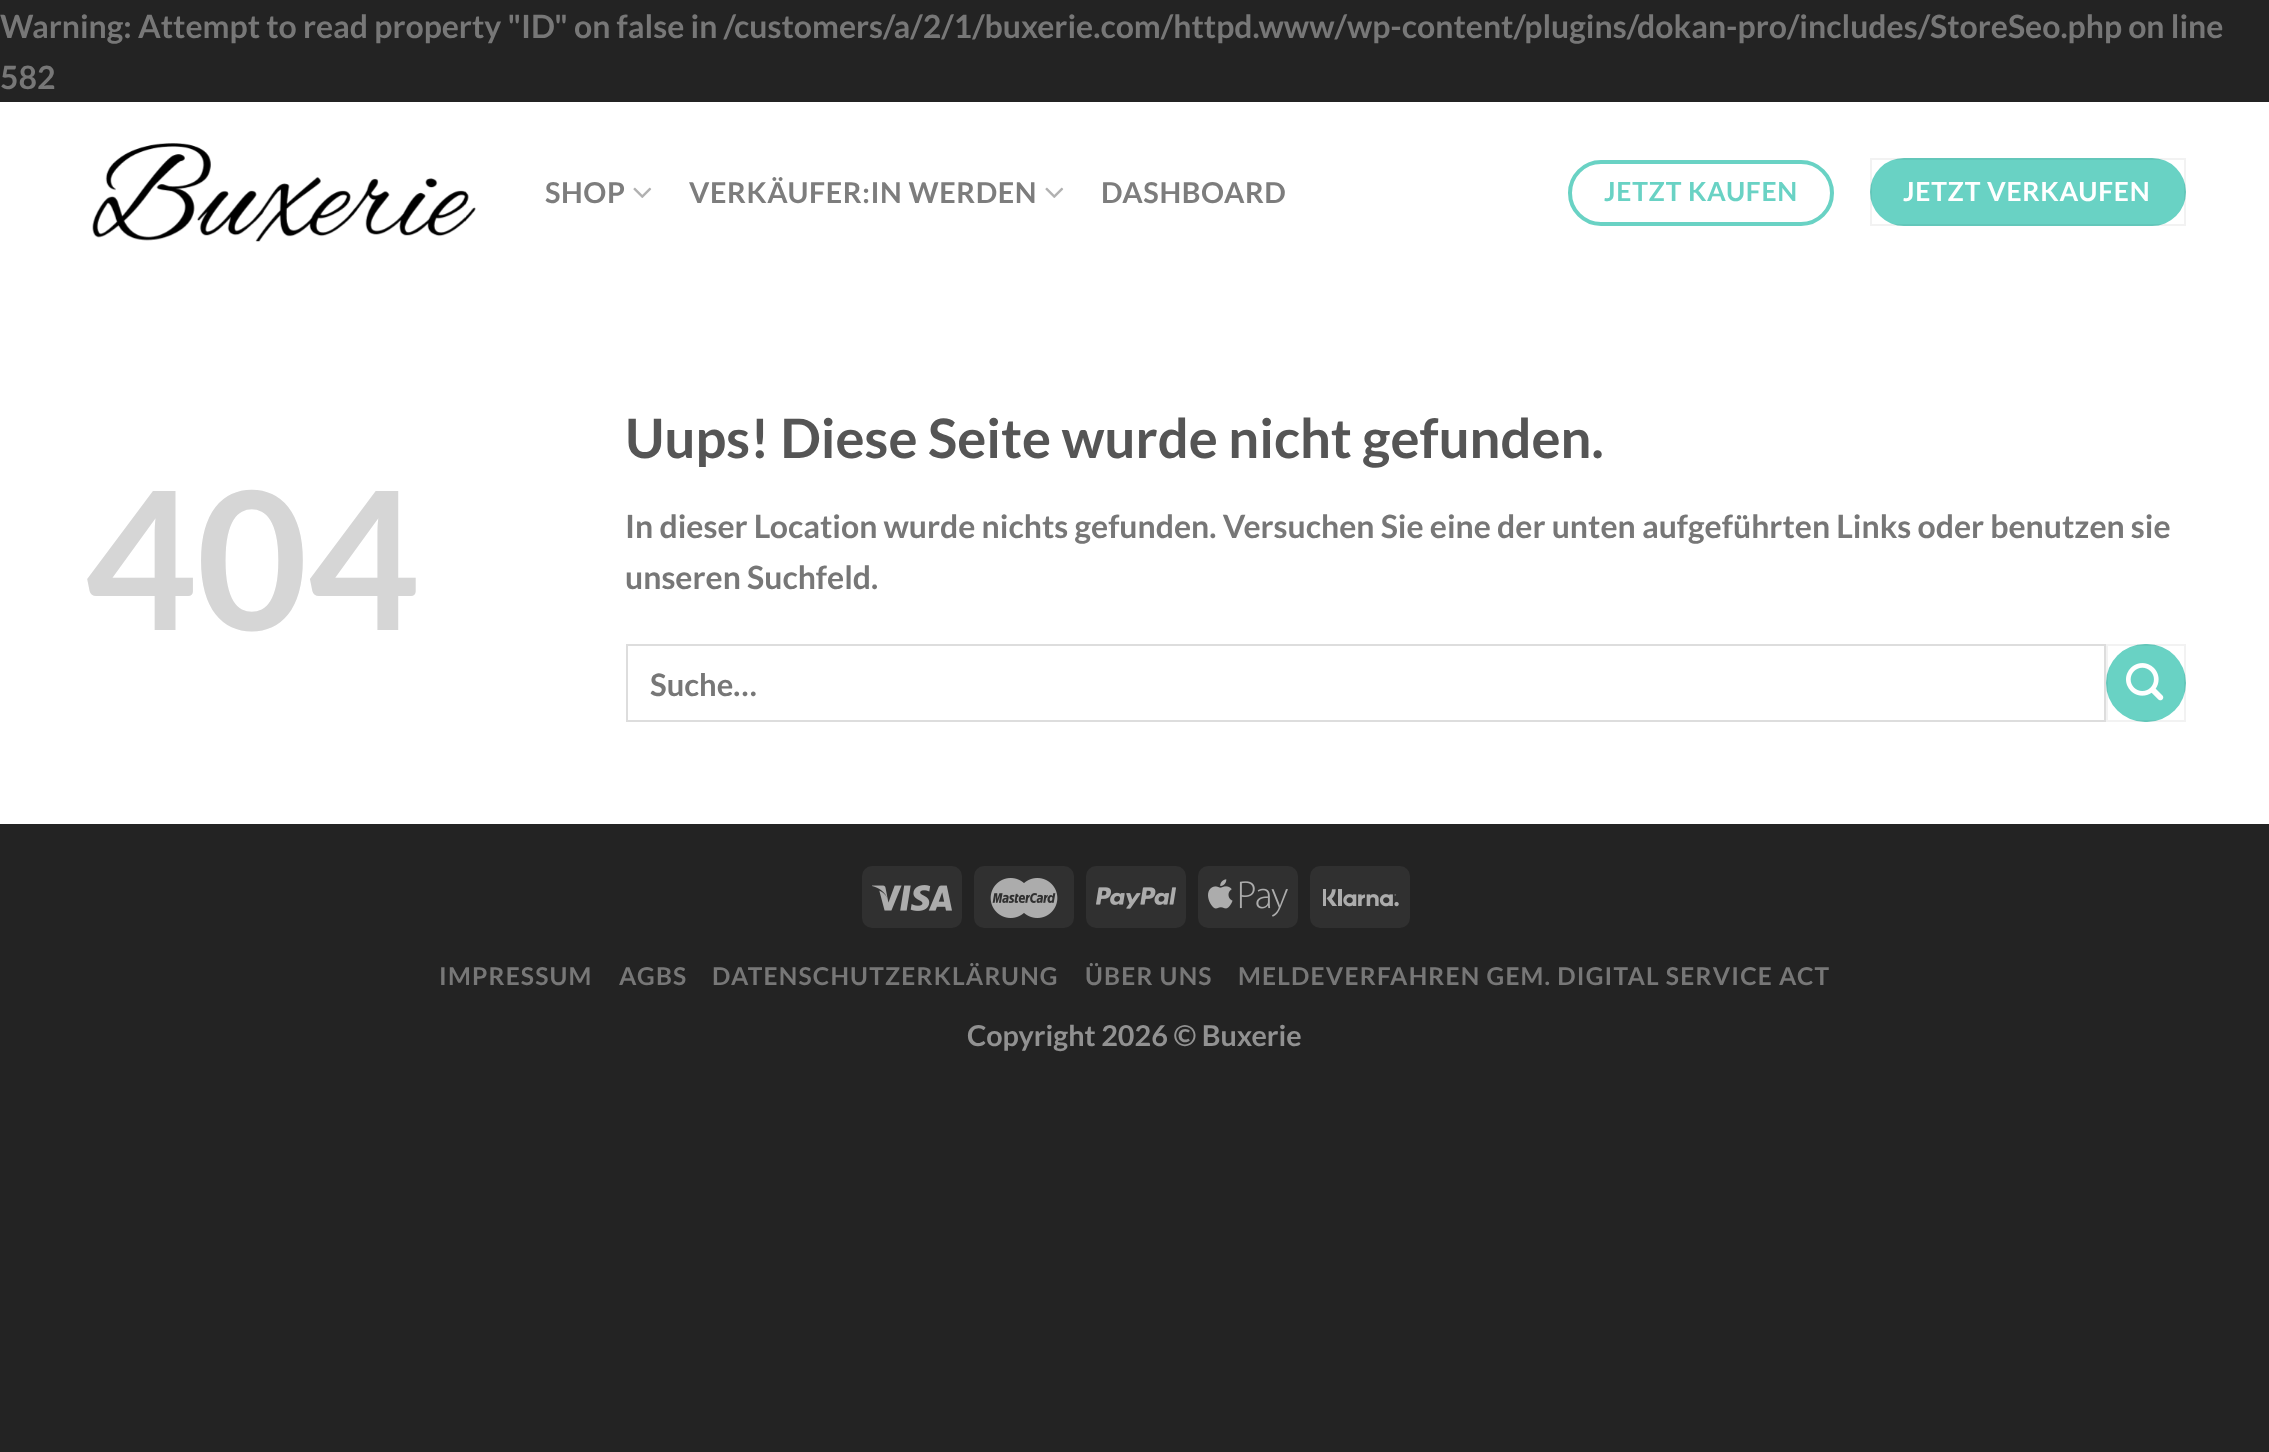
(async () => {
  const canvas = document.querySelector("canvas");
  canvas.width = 2269;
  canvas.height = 1452;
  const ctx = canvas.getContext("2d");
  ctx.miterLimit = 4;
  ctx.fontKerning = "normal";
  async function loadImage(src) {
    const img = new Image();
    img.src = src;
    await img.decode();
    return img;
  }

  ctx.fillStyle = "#232323";
  ctx.fillRect(0, 0, 2269, 1452);
  ctx.fillStyle = "#ffffff";
  ctx.fillRect(0, 102, 2269, 722);
  ctx.drawImage(await loadImage("img/1.png"), 92, 143, 384, 99);
  ctx.drawImage(await loadImage("img/2.png"), 633, 187, 19, 11);
  ctx.drawImage(await loadImage("img/2.png"), 1045, 187, 19, 11);
  ctx.beginPath();
  ctx.roundRect(1570, 162, 262, 62, 31);
  ctx.strokeStyle = "#69d2c4";
  ctx.lineWidth = 4;
  ctx.stroke();
  ctx.fillStyle = "#69d2c4";
  ctx.beginPath();
  ctx.roundRect(1870, 158, 316, 68, 34);
  ctx.fill();
  ctx.strokeStyle = "rgba(0, 0, 0, 0.05)";
  ctx.lineWidth = 2;
  ctx.strokeRect(1871, 159, 314, 66);
  ctx.strokeStyle = "#dddddd";
  ctx.strokeRect(627, 645, 1478, 76);
  ctx.beginPath();
  ctx.roundRect(2106, 644, 80, 78, 39);
  ctx.fill();
  ctx.strokeStyle = "rgba(0, 0, 0, 0.05)";
  ctx.strokeRect(2107, 645, 78, 76);
  ctx.drawImage(await loadImage("img/3.png"), 2126, 663, 38, 38);
  ctx.fillStyle = "#303030";
  ctx.beginPath();
  ctx.roundRect(862, 866, 100, 62, 10);
  ctx.fill();
  ctx.drawImage(await loadImage("img/4.png"), 872, 885, 80, 26);
  ctx.beginPath();
  ctx.roundRect(974, 866, 100, 62, 10);
  ctx.fill();
  ctx.drawImage(await loadImage("img/5.png"), 990, 878, 68, 40);
  ctx.beginPath();
  ctx.roundRect(1086, 866, 100, 62, 10);
  ctx.fill();
  ctx.drawImage(await loadImage("img/6.png"), 1096, 887, 80, 22);
  ctx.beginPath();
  ctx.roundRect(1198, 866, 100, 62, 10);
  ctx.fill();
  ctx.drawImage(await loadImage("img/7.png"), 1208, 879, 80, 38);
  ctx.beginPath();
  ctx.roundRect(1310, 866, 100, 62, 10);
  ctx.fill();
  ctx.drawImage(await loadImage("img/8.png"), 1323, 889, 76, 18);
  ctx.font = "bold 32px Lato";
  ctx.fillStyle = "#777777";
  ctx.fillText("Warning: Attempt to read property \"ID\" on false in /customers/a/2/1/buxerie.com/httpd.www/wp-content/plugins/dokan-pro/includes/StoreSeo.php on line", 0, 38);
  ctx.fillText("582", 0, 89);
  ctx.letterSpacing = "0.6px";
  ctx.font = "bold 28.75px Lato";
  ctx.fillStyle = "#7d7d7d";
  for (const [text, x, y] of [
    ["SHOP", 545, 203],
    ["VERKÄUFER:IN WERDEN", 689, 203],
    ["DASHBOARD", 1101, 203],
  ]) {
    ctx.fillText(text, x, y);
  }
  ctx.letterSpacing = "0.75px";
  ctx.font = "bold 26.4px Lato";
  ctx.fillStyle = "#69d2c4";
  ctx.fillText("JETZT KAUFEN", 1604, 201);
  ctx.fillStyle = "#ffffff";
  ctx.fillText("JETZT VERKAUFEN", 1903, 201);
  ctx.letterSpacing = "0px";
  ctx.font = "bold 192px Lato";
  ctx.fillStyle = "#d6d6d6";
  ctx.fillText("404", 85, 630);
  ctx.font = "bold 54.4px Lato";
  ctx.fillStyle = "#555555";
  ctx.fillText("Uups! Diese Seite wurde nicht gefunden.", 625, 458);
  ctx.font = "bold 32px Lato";
  ctx.fillStyle = "#777777";
  ctx.fillText("In dieser Location wurde nichts gefunden. Versuchen Sie eine der unten aufgeführten Links oder benutzen sie", 625, 538);
  ctx.fillText("unseren Suchfeld.", 625, 589);
  ctx.font = "bold 31px Lato";
  ctx.fillText("Suche…", 650, 696);
  ctx.letterSpacing = "1.2px";
  ctx.font = "bold 24.5px Lato";
  for (const [text, x, y] of [
    ["IMPRESSUM", 439, 985],
    ["AGBS", 619, 985],
    ["DATENSCHUTZERKLÄRUNG", 712, 985],
    ["ÜBER UNS", 1085, 985],
    ["MELDEVERFAHREN GEM. DIGITAL SERVICE ACT", 1238, 985],
  ]) {
    ctx.fillText(text, x, y);
  }
  ctx.letterSpacing = "0px";
  ctx.font = "bold 28.75px Lato";
  ctx.fillStyle = "#919191";
  ctx.fillText("Copyright 2026 © Buxerie", 967, 1046);
})();
